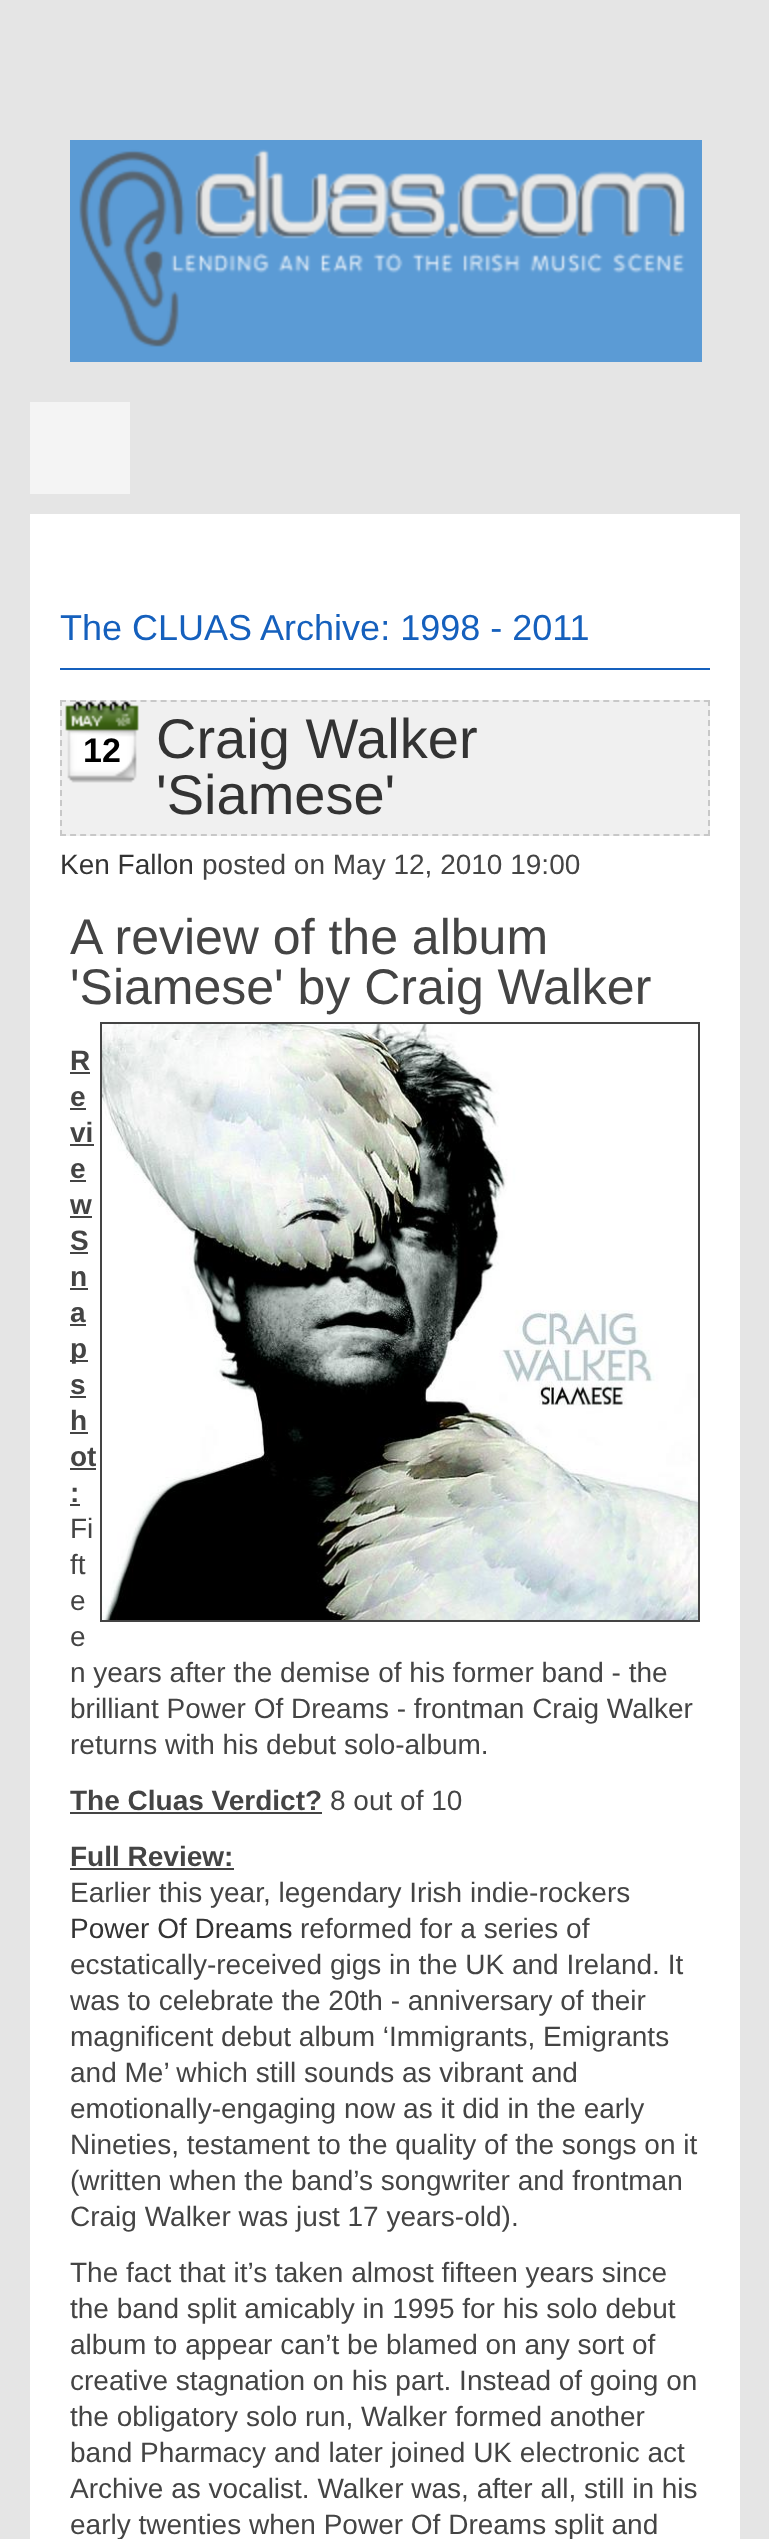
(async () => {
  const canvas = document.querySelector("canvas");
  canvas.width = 769;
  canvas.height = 2539;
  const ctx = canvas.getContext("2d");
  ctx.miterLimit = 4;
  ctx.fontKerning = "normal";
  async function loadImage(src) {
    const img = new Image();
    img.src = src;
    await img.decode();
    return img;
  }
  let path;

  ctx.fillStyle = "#e5e5e5";
  ctx.fillRect(0, 0, 769, 2539);
  ctx.drawImage(await loadImage("img/1.png"), 70, 140, 632, 222);
  for (const [x, y, w, h, color] of [
    [30, 402, 100, 92, "#f4f4f4"],
    [30, 514, 710, 2025, "#ffffff"],
    [60, 668, 650, 2, "#1560bd"],
    [60, 700, 650, 136, "#f0f0f0"],
  ]) {
    ctx.fillStyle = color;
    ctx.fillRect(x, y, w, h);
  }
  path = new Path2D("M60 701H710");
  ctx.strokeStyle = "#c8c8c8";
  ctx.lineWidth = 2;
  ctx.setLineDash([6, 4.06]);
  ctx.stroke(path);
  ctx.drawImage(await loadImage("img/2.png"), 65, 701, 74, 82);
  path = new Path2D("M709 700V836");
  ctx.setLineDash([6, 4]);
  ctx.stroke(path);
  path = new Path2D("M60 835H710");
  ctx.setLineDash([6, 4.06]);
  ctx.stroke(path);
  path = new Path2D("M61 700V836");
  ctx.setLineDash([6, 4]);
  ctx.stroke(path);
  ctx.strokeStyle = "#444444";
  ctx.setLineDash([]);
  ctx.strokeRect(101, 1023, 598, 598);
  ctx.drawImage(await loadImage("img/3.png"), 102, 1024, 596, 596);
  for (const [x, y, w, h, color] of [
    [70, 1072, 20, 2, "#444444"],
    [70, 1108, 16, 2, "#444444"],
    [70, 1144, 24, 2, "#444444"],
    [70, 1180, 16, 2, "#444444"],
    [70, 1216, 22, 2, "#444444"],
    [70, 1252, 18, 2, "#444444"],
    [70, 1288, 18, 2, "#444444"],
    [70, 1324, 16, 2, "#444444"],
    [70, 1360, 18, 2, "#444444"],
    [70, 1396, 16, 2, "#444444"],
    [70, 1432, 18, 2, "#444444"],
    [70, 1468, 26, 2, "#444444"],
    [70, 1504, 10, 2, "#444444"],
    [70, 1812, 252, 2, "#444444"],
    [70, 1868, 164, 2, "#444444"],
  ]) {
    ctx.fillStyle = color;
    ctx.fillRect(x, y, w, h);
  }
  ctx.font = "36px Liberation Sans";
  ctx.fillStyle = "#1560bd";
  ctx.fillText("The CLUAS Archive: 1998 - 2011", 60, 640);
  ctx.font = "bold 34px Liberation Sans";
  ctx.fillStyle = "#000000";
  ctx.fillText("12", 83, 762);
  ctx.font = "56px Liberation Sans";
  ctx.fillStyle = "#333333";
  ctx.fillText("Craig Walker", 156, 758);
  ctx.fillText("'Siamese'", 156, 814);
  ctx.font = "28px Liberation Sans";
  ctx.fillText("Ken Fallon", 60, 874);
  ctx.fillStyle = "#444444";
  ctx.fillText("posted on May 12, 2010 19:00", 202, 874);
  ctx.font = "50px Liberation Sans";
  ctx.fillText("A review of the album", 70, 954);
  ctx.fillText("'Siamese' by Craig Walker", 70, 1004);
  ctx.font = "bold 28px Liberation Sans";
  for (const [text, x, y] of [
    ["R", 70, 1070],
    ["e", 70, 1106],
    ["vi", 70, 1142],
    ["e", 70, 1178],
    ["w", 70, 1214],
    ["S", 70, 1250],
    ["n", 70, 1286],
    ["a", 70, 1322],
    ["p", 70, 1358],
    ["s", 70, 1394],
    ["h", 70, 1430],
    ["ot", 70, 1466],
    [":", 70, 1502],
  ]) {
    ctx.fillText(text, x, y);
  }
  ctx.font = "28px Liberation Sans";
  for (const [text, x, y] of [
    ["Fi", 70, 1538],
    ["ft", 70, 1574],
    ["e", 70, 1610],
    ["e", 70, 1646],
    ["n years after the demise of his former band - the", 70, 1682],
    ["brilliant Power Of Dreams - frontman Craig Walker", 70, 1718],
    ["returns with his debut solo-album.", 70, 1754],
  ]) {
    ctx.fillText(text, x, y);
  }
  ctx.font = "bold 28px Liberation Sans";
  ctx.fillText("The Cluas Verdict?", 70, 1810);
  ctx.font = "28px Liberation Sans";
  ctx.fillText("8 out of 10", 330, 1810);
  ctx.font = "bold 28px Liberation Sans";
  ctx.fillText("Full Review:", 70, 1866);
  ctx.font = "28px Liberation Sans";
  ctx.fillText("Earlier this year, legendary Irish indie-rockers", 70, 1902);
  ctx.fillStyle = "#333333";
  ctx.fillText("Power Of Dreams", 70, 1938);
  ctx.fillStyle = "#444444";
  for (const [text, x, y] of [
    ["reformed for a series of", 300, 1938],
    ["ecstatically-received gigs in the UK and Ireland. It", 70, 1974],
    ["was to celebrate the 20th - anniversary of their", 70, 2010],
    ["magnificent debut album ‘Immigrants, Emigrants", 70, 2046],
    ["and Me’ which still sounds as vibrant and", 70, 2082],
    ["emotionally-engaging now as it did in the early", 70, 2118],
    ["Nineties, testament to the quality of the songs on it", 70, 2154],
    ["(written when the band’s songwriter and frontman", 70, 2190],
    ["Craig Walker was just 17 years-old).", 70, 2226],
    ["The fact that it’s taken almost fifteen years since", 70, 2282],
    ["the band split amicably in 1995 for his solo debut", 70, 2318],
    ["album to appear can’t be blamed on any sort of", 70, 2354],
    ["creative stagnation on his part. Instead of going on", 70, 2390],
    ["the obligatory solo run, Walker formed another", 70, 2426],
    ["band Pharmacy and later joined UK electronic act", 70, 2462],
    ["Archive as vocalist. Walker was, after all, still in his", 70, 2498],
    ["early twenties when Power Of Dreams split and", 70, 2534],
  ]) {
    ctx.fillText(text, x, y);
  }
})();
